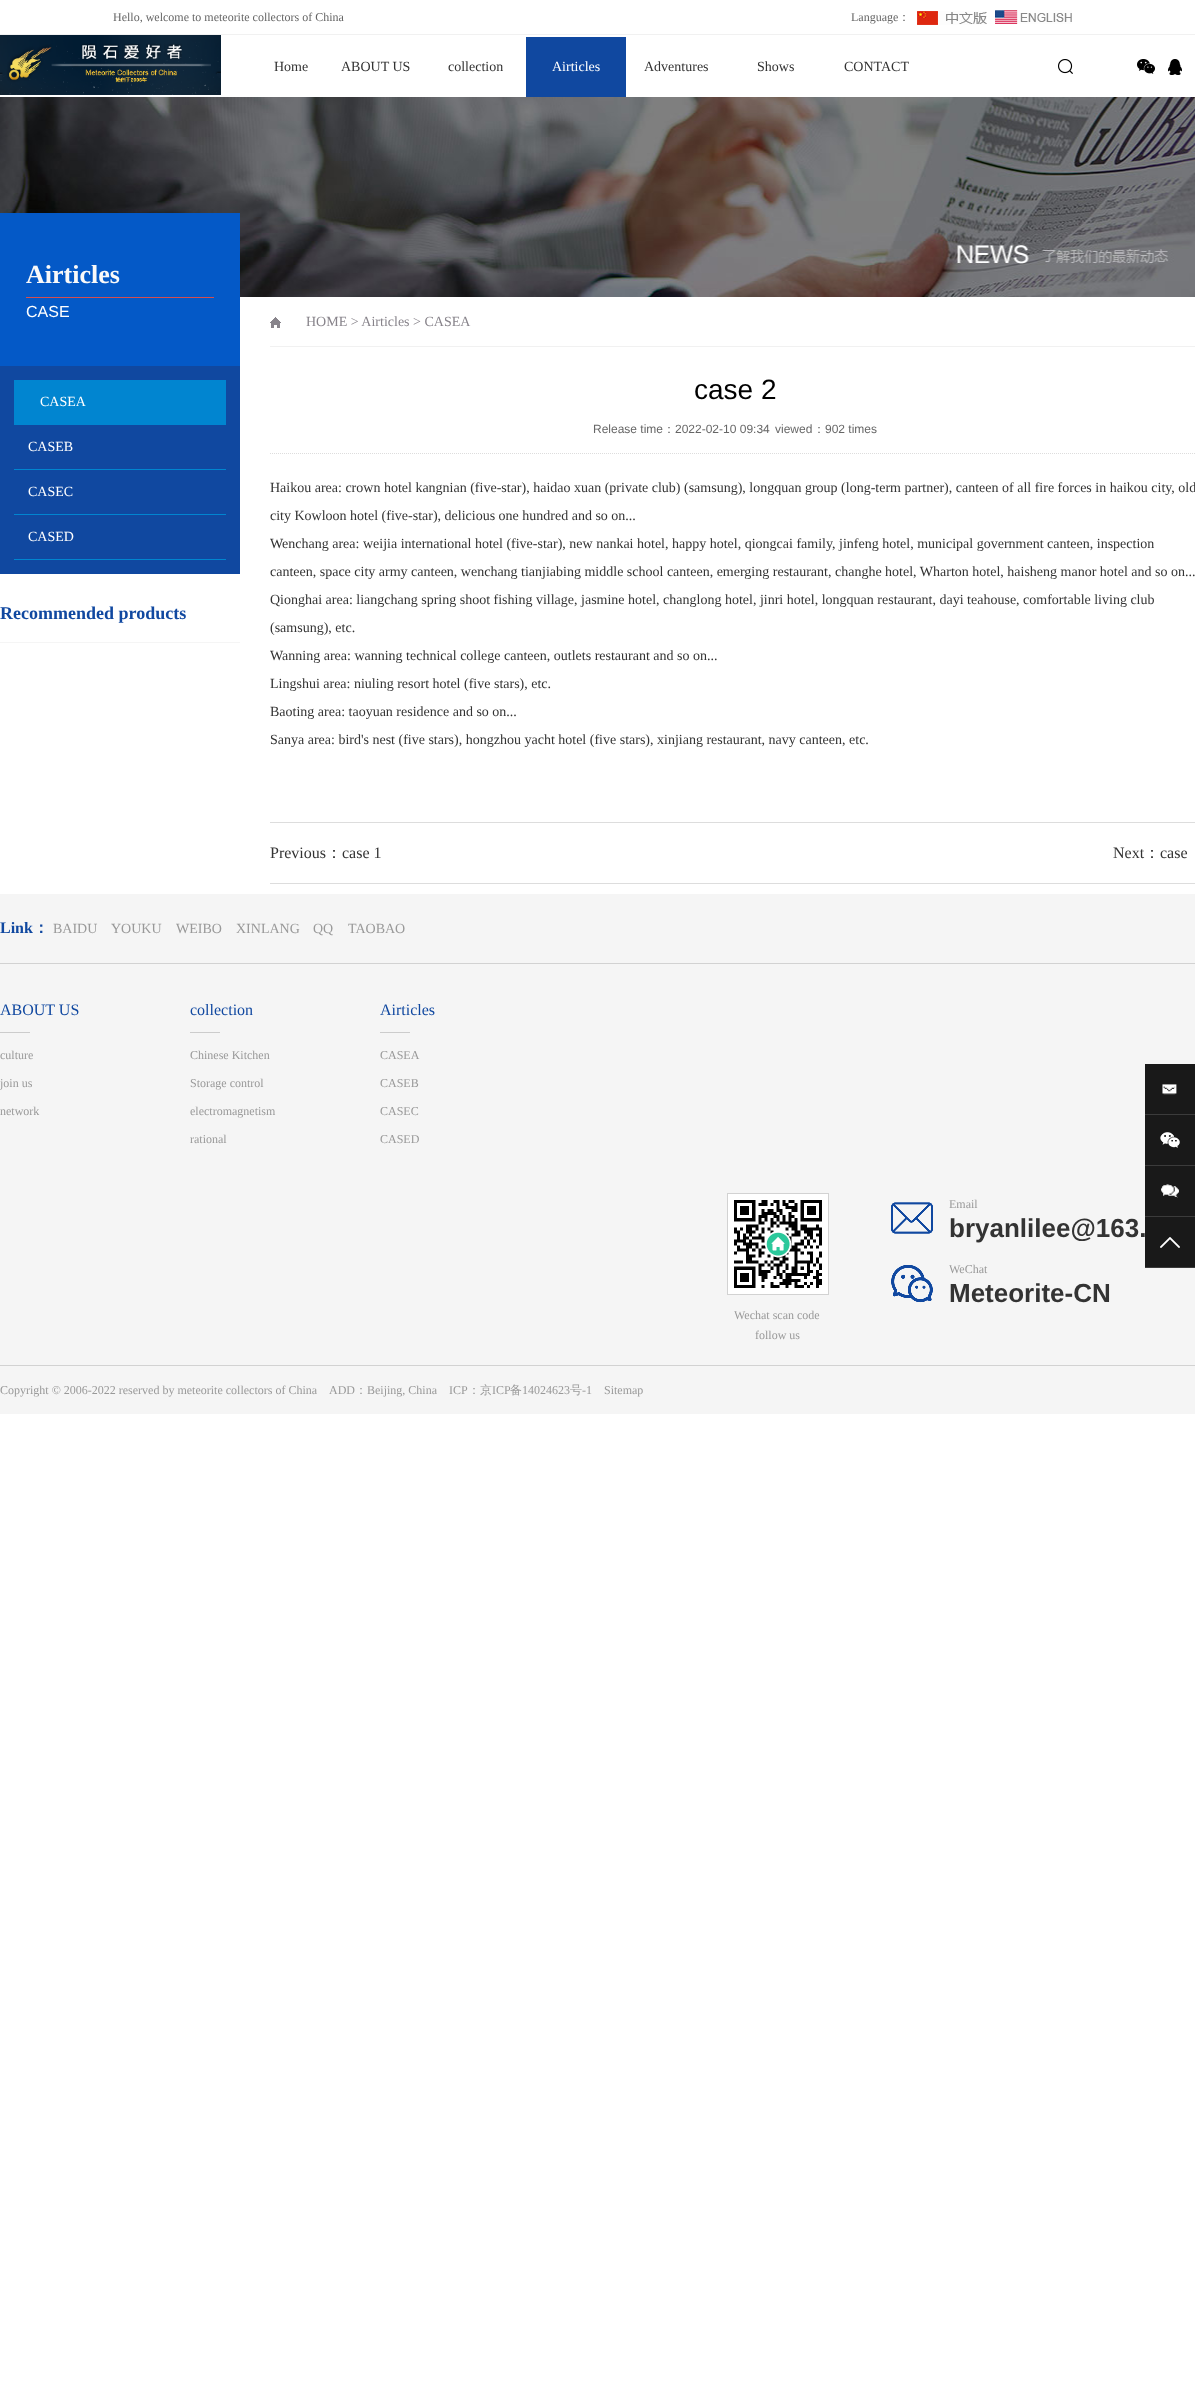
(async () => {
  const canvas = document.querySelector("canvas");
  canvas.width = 1195;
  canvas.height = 2382;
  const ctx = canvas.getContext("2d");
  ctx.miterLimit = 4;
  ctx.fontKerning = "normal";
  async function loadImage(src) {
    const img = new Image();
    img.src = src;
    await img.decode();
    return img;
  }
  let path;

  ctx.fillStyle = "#ffffff";
  ctx.fillRect(0, 0, 1195, 2382);
  ctx.fillStyle = "#f1f1f1";
  ctx.fillRect(0, 34, 1195, 1);
  ctx.drawImage(await loadImage("img/1.png"), 917, 11, 70, 14);
  ctx.drawImage(await loadImage("img/2.png"), 995, 10, 77, 14);
  ctx.drawImage(await loadImage("img/3.png"), 0, 35, 221, 60);
  ctx.fillStyle = "#1048a0";
  ctx.fillRect(526, 37, 100, 60);
  ctx.drawImage(await loadImage("img/4.png"), 1058, 59, 15, 15);
  ctx.drawImage(await loadImage("img/5.png"), 1137, 59, 18, 15);
  ctx.drawImage(await loadImage("img/6.png"), 1168, 59, 14, 16);
  ctx.drawImage(await loadImage("img/7.png"), 0, 97, 1195, 200);
  for (const [x, y, w, h, color] of [
    [0, 213, 240, 153, "#0459c7"],
    [26, 297, 188, 1, "#d64e4e"],
    [0, 366, 240, 208, "#1048a0"],
    [14, 380, 212, 45, "#0185d0"],
    [14, 469, 212, 1, "#0185d0"],
    [14, 514, 212, 1, "#0185d0"],
    [14, 559, 212, 1, "#0185d0"],
    [0, 642, 240, 1, "#f5f5f5"],
    [270, 346, 925, 1, "#f1f1f1"],
  ]) {
    ctx.fillStyle = color;
    ctx.fillRect(x, y, w, h);
  }
  ctx.drawImage(await loadImage("img/8.png"), 270, 317, 11, 11);
  path = new Path2D("M270 453.5H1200");
  ctx.strokeStyle = "#dddddd";
  ctx.setLineDash([1, 1]);
  ctx.stroke(path);
  for (const [x, y, w, h, color] of [
    [270, 822, 925, 1, "#dddddd"],
    [270, 883, 925, 1, "#dddddd"],
    [0, 894, 1195, 471, "#f5f5f5"],
    [0, 963, 1195, 1, "#d2d2d2"],
    [0, 1032, 30, 1, "#cccccc"],
    [190, 1032, 30, 1, "#cccccc"],
    [380, 1032, 30, 1, "#cccccc"],
  ]) {
    ctx.fillStyle = color;
    ctx.fillRect(x, y, w, h);
  }
  ctx.drawImage(await loadImage("img/9.png"), 891, 1202, 42, 32);
  ctx.drawImage(await loadImage("img/10.png"), 891, 1265, 42, 38);
  ctx.strokeStyle = "#d2d2d2";
  ctx.setLineDash([]);
  ctx.strokeRect(727.5, 1193.5, 101, 101);
  ctx.drawImage(await loadImage("img/11.png"), 728, 1194, 100, 100);
  ctx.fillStyle = "#3b3b3b";
  ctx.fillRect(1145, 1114, 50, 1);
  ctx.fillStyle = "#191919";
  ctx.fillRect(1145, 1064, 50, 50);
  ctx.drawImage(await loadImage("img/12.png"), 1162, 1084, 15, 11);
  ctx.fillStyle = "#3b3b3b";
  ctx.fillRect(1145, 1165, 50, 1);
  ctx.fillStyle = "#191919";
  ctx.fillRect(1145, 1115, 50, 50);
  ctx.drawImage(await loadImage("img/13.png"), 1160, 1132, 20, 16);
  ctx.fillStyle = "#3b3b3b";
  ctx.fillRect(1145, 1216, 50, 1);
  ctx.fillStyle = "#191919";
  ctx.fillRect(1145, 1166, 50, 50);
  ctx.drawImage(await loadImage("img/14.png"), 1161, 1184, 18, 14);
  ctx.fillStyle = "#3b3b3b";
  ctx.fillRect(1145, 1267, 50, 1);
  ctx.fillStyle = "#191919";
  ctx.fillRect(1145, 1217, 50, 50);
  ctx.drawImage(await loadImage("img/15.png"), 1160, 1237, 20, 11);
  ctx.fillStyle = "#f5f5f5";
  ctx.fillRect(0, 1366, 1195, 48);
  ctx.fillStyle = "#d2d2d2";
  ctx.fillRect(0, 1365, 1195, 1);
  ctx.font = "12px Liberation Serif";
  ctx.fillStyle = "#666666";
  ctx.fillText("Hello, welcome to meteorite collectors of China", 113, 21);
  ctx.fillText("Language", 851, 21);
  ctx.font = "500 12px WenQuanYi Zen Hei";
  ctx.fillText("：", 898, 21);
  ctx.font = "14px Liberation Serif";
  ctx.fillStyle = "#333333";
  for (const [text, x, y] of [
    ["Home", 274, 71],
    ["ABOUT US", 341, 71],
    ["collection", 448, 71],
  ]) {
    ctx.fillText(text, x, y);
  }
  ctx.fillStyle = "#ffffff";
  ctx.fillText("Airticles", 552, 71);
  ctx.fillStyle = "#333333";
  for (const [text, x, y] of [
    ["Adventures", 644, 71],
    ["Shows", 757, 71],
    ["CONTACT", 844, 71],
  ]) {
    ctx.fillText(text, x, y);
  }
  ctx.font = "bold 26px Liberation Serif";
  ctx.fillStyle = "#f9f9f9";
  ctx.fillText("Airticles", 26, 283);
  ctx.font = "16px Liberation Sans";
  ctx.fillStyle = "#ffffff";
  ctx.fillText("CASE", 26, 317);
  ctx.font = "14px Liberation Serif";
  for (const [text, x, y] of [
    ["CASEA", 40, 406],
    ["CASEB", 28, 451],
    ["CASEC", 28, 496],
    ["CASED", 28, 541],
  ]) {
    ctx.fillText(text, x, y);
  }
  ctx.font = "bold 18px Liberation Serif";
  ctx.fillStyle = "#1048a0";
  ctx.fillText("Recommended products", 0, 619);
  ctx.font = "14px Liberation Serif";
  ctx.fillStyle = "#88848b";
  ctx.fillText("HOME > Airticles > CASEA", 306, 326);
  ctx.font = "28px Liberation Sans";
  ctx.fillStyle = "#000000";
  ctx.fillText("case 2", 694, 399);
  ctx.font = "12px Liberation Sans";
  ctx.fillStyle = "#666666";
  ctx.fillText("Release time", 593, 433);
  ctx.font = "500 12px WenQuanYi Zen Hei";
  ctx.fillText("：", 663, 433);
  ctx.font = "12px Liberation Sans";
  ctx.fillText("2022-02-10 09:34", 675, 433);
  ctx.fillText("viewed", 775, 433);
  ctx.font = "500 12px WenQuanYi Zen Hei";
  ctx.fillText("：", 813, 433);
  ctx.font = "12px Liberation Sans";
  ctx.fillText("902 times", 825, 433);
  ctx.font = "14px Liberation Serif";
  ctx.fillStyle = "#333333";
  for (const [text, x, y] of [
    ["Haikou area: crown hotel kangnian (five-star), haidao xuan (private club) (samsung), longquan group (long-term partner), canteen of all fire forces in haikou city, old", 270, 492],
    ["city Kowloon hotel (five-star), delicious one hundred and so on...", 270, 520],
    ["Wenchang area: weijia international hotel (five-star), new nankai hotel, happy hotel, qiongcai family, jinfeng hotel, municipal government canteen, inspection", 270, 548],
    ["canteen, space city army canteen, wenchang tianjiabing middle school canteen, emerging restaurant, changhe hotel, Wharton hotel, haisheng manor hotel and so on...", 270, 576],
    ["Qionghai area: liangchang spring shoot fishing village, jasmine hotel, changlong hotel, jinri hotel, longquan restaurant, dayi teahouse, comfortable living club", 270, 604],
    ["(samsung), etc.", 270, 632],
    ["Wanning area: wanning technical college canteen, outlets restaurant and so on...", 270, 660],
    ["Lingshui area: niuling resort hotel (five stars), etc.", 270, 688],
    ["Baoting area: taoyuan residence and so on...", 270, 716],
    ["Sanya area: bird's nest (five stars), hongzhou yacht hotel (five stars), xinjiang restaurant, navy canteen, etc.", 270, 744],
  ]) {
    ctx.fillText(text, x, y);
  }
  ctx.font = "16px Liberation Serif";
  ctx.fillText("Previous", 270, 858);
  ctx.font = "500 16px WenQuanYi Zen Hei";
  ctx.fillText("：", 326, 858);
  ctx.font = "16px Liberation Serif";
  ctx.fillText("case 1", 342, 858);
  ctx.fillText("Next", 1113, 858);
  ctx.font = "500 16px WenQuanYi Zen Hei";
  ctx.fillText("：", 1144, 858);
  ctx.font = "16px Liberation Serif";
  ctx.fillText("case", 1160, 858);
  ctx.font = "bold 16px Liberation Serif";
  ctx.fillStyle = "#1048a0";
  ctx.fillText("Link", 0, 933);
  ctx.font = "bold 16px WenQuanYi Zen Hei";
  ctx.fillText("：", 33, 933);
  ctx.font = "14px Liberation Serif";
  ctx.fillStyle = "#999999";
  for (const [text, x, y] of [
    ["BAIDU", 53, 933],
    ["YOUKU", 111, 933],
    ["WEIBO", 176, 933],
    ["XINLANG", 236, 933],
    ["QQ", 313, 933],
    ["TAOBAO", 348, 933],
  ]) {
    ctx.fillText(text, x, y);
  }
  ctx.font = "16px Liberation Serif";
  ctx.fillStyle = "#1048a0";
  ctx.fillText("ABOUT US", 0, 1015);
  ctx.font = "12px Liberation Serif";
  ctx.fillStyle = "#999999";
  for (const [text, x, y] of [
    ["culture", 0, 1059],
    ["join us", 0, 1087],
    ["network", 0, 1115],
  ]) {
    ctx.fillText(text, x, y);
  }
  ctx.font = "16px Liberation Serif";
  ctx.fillStyle = "#1048a0";
  ctx.fillText("collection", 190, 1015);
  ctx.font = "12px Liberation Serif";
  ctx.fillStyle = "#999999";
  for (const [text, x, y] of [
    ["Chinese Kitchen", 190, 1059],
    ["Storage control", 190, 1087],
    ["electromagnetism", 190, 1115],
    ["rational", 190, 1143],
  ]) {
    ctx.fillText(text, x, y);
  }
  ctx.font = "16px Liberation Serif";
  ctx.fillStyle = "#1048a0";
  ctx.fillText("Airticles", 380, 1015);
  ctx.font = "12px Liberation Serif";
  ctx.fillStyle = "#999999";
  for (const [text, x, y] of [
    ["CASEA", 380, 1059],
    ["CASEB", 380, 1087],
    ["CASEC", 380, 1115],
    ["CASED", 380, 1143],
    ["Email", 949, 1208],
  ]) {
    ctx.fillText(text, x, y);
  }
  ctx.font = "bold 26px Liberation Sans";
  ctx.fillStyle = "#333333";
  ctx.fillText("bryanlilee@163.", 949, 1237);
  ctx.font = "12px Liberation Serif";
  ctx.fillStyle = "#999999";
  ctx.fillText("WeChat", 949, 1273);
  ctx.font = "bold 26px Liberation Sans";
  ctx.fillStyle = "#333333";
  ctx.fillText("Meteorite-CN", 949, 1302);
  ctx.font = "12px Liberation Serif";
  ctx.fillStyle = "#999999";
  for (const [text, x, y] of [
    ["Wechat scan code", 734, 1319],
    ["follow us", 755, 1339],
    ["Copyright © 2006-2022 reserved by meteorite collectors of China", 0, 1394],
    ["ADD", 329, 1394],
  ]) {
    ctx.fillText(text, x, y);
  }
  ctx.font = "500 12px WenQuanYi Zen Hei";
  ctx.fillText("：", 355, 1394);
  ctx.font = "12px Liberation Serif";
  ctx.fillText("Beijing, China", 367, 1394);
  ctx.fillText("ICP", 449, 1394);
  ctx.font = "500 12px WenQuanYi Zen Hei";
  ctx.fillText("：京", 468, 1394);
  ctx.font = "12px Liberation Serif";
  ctx.fillText("ICP", 492, 1394);
  ctx.font = "500 12px WenQuanYi Zen Hei";
  ctx.fillText("备", 510, 1394);
  ctx.font = "12px Liberation Serif";
  ctx.fillText("14024623", 522, 1394);
  ctx.font = "500 12px WenQuanYi Zen Hei";
  ctx.fillText("号", 570, 1394);
  ctx.font = "12px Liberation Serif";
  ctx.fillText("-1", 582, 1394);
  ctx.fillText("Sitemap", 604, 1394);
})();
